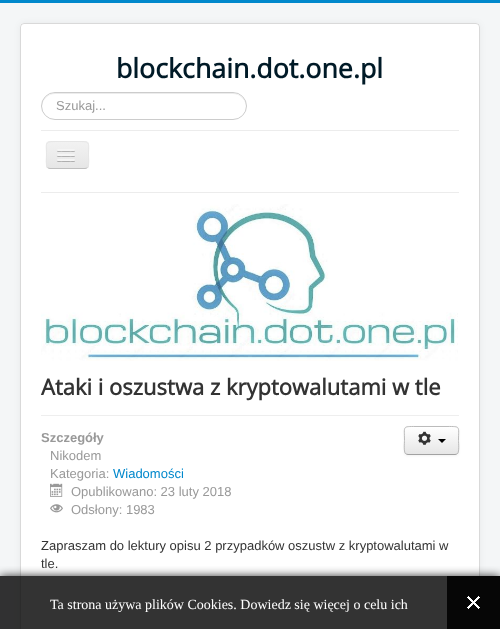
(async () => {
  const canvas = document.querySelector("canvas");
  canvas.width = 500;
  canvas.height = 629;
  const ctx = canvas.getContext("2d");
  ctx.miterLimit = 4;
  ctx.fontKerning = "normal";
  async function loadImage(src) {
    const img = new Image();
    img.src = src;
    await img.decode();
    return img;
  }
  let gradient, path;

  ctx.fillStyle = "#f4f6f7";
  ctx.fillRect(0, 0, 500, 629);
  ctx.fillStyle = "#0088cc";
  ctx.fillRect(0, 0, 500, 3);
  ctx.fillStyle = "rgba(0, 0, 0, 0.05)";
  ctx.filter = "blur(3px)";
  ctx.beginPath();
  ctx.roundRect(20, 23, 460, 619, 4);
  ctx.fill();
  ctx.filter = "none";
  ctx.fillStyle = "#ffffff";
  ctx.beginPath();
  ctx.roundRect(20, 23, 460, 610, 4);
  ctx.fill();
  ctx.beginPath();
  ctx.roundRect(20.5, 23.5, 459, 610, 3.5);
  ctx.strokeStyle = "rgba(0, 0, 0, 0.15)";
  ctx.stroke();
  ctx.fillStyle = "#ececec";
  path = new Path2D("M55 94H233C240 94 246 100 246 107C247 86 211 93 203 93H85C77 93 41 86 42 107C42 100 48 94 55 94Z");
  ctx.fill(path);
  ctx.beginPath();
  ctx.roundRect(41.5, 92.5, 205, 27, 13.5);
  ctx.strokeStyle = "#cccccc";
  ctx.stroke();
  ctx.fillRect(41, 130, 418, 1);
  ctx.fillRect(41, 192, 418, 1);
  ctx.fillStyle = "#ededed";
  ctx.beginPath();
  ctx.roundRect(46, 141, 43, 28, 4);
  ctx.fill();
  ctx.save();
  ctx.beginPath();
  ctx.roundRect(46, 141, 43, 28, 4);
  ctx.clip();
  gradient = ctx.createLinearGradient(68, 142, 68, 168);
  gradient.addColorStop(0, "#f2f2f2");
  gradient.addColorStop(1, "#e6e6e6");
  ctx.fillStyle = gradient;
  ctx.fillRect(46, 142, 43, 26);
  ctx.restore();
  path = new Path2D("M87.5 167.5C87 168 86 168.5 85 168.5H50C49 168.5 48 168 47.5 167.5");
  ctx.strokeStyle = "#bfbfbf";
  ctx.stroke(path);
  path = new Path2D("M47.5 167.5C45.5 165 46.5 157.5 46.5 155C46.5 143 44 141.5 56 141.5H79C91 141.5 88.5 143 88.5 155C88.5 157.5 89.5 165 87.5 167.5");
  ctx.strokeStyle = "#e6e6e6";
  ctx.stroke(path);
  ctx.fillStyle = "#b3b3b3";
  path = new Path2D("M57 150.5C56 152.5 60.5 152 60.5 152H71.5C71.5 152 76 152.5 75 150.5C74 151.5 67.5 151 66 151C64.5 151 58 151.5 57 150.5Z");
  ctx.fill(path);
  ctx.fillStyle = "#f5f5f5";
  ctx.beginPath();
  ctx.roundRect(57, 149, 18, 2, 1);
  ctx.fill();
  ctx.fillStyle = "#b0b0b0";
  path = new Path2D("M57 155.5C56 157.5 60.5 157 60.5 157H71.5C71.5 157 76 157.5 75 155.5C74 156.5 67.5 156 66 156C64.5 156 58 156.5 57 155.5Z");
  ctx.fill(path);
  ctx.fillStyle = "#f5f5f5";
  ctx.beginPath();
  ctx.roundRect(57, 154, 18, 2, 1);
  ctx.fill();
  ctx.fillStyle = "#afafaf";
  path = new Path2D("M57 160.5C56 162.5 60.5 162 60.5 162H71.5C71.5 162 76 162.5 75 160.5C74 161.5 67.5 161 66 161C64.5 161 58 161.5 57 160.5Z");
  ctx.fill(path);
  ctx.fillStyle = "#f5f5f5";
  ctx.beginPath();
  ctx.roundRect(57, 159, 18, 2, 1);
  ctx.fill();
  ctx.drawImage(await loadImage("img/1.png"), 41, 204, 417, 157);
  ctx.fillStyle = "#eeeeee";
  ctx.fillRect(41, 415, 418, 1);
  ctx.drawImage(await loadImage("img/2.png"), 50, 483, 13, 14);
  ctx.drawImage(await loadImage("img/3.png"), 50, 504, 13, 9);
  ctx.fillStyle = "rgba(0, 0, 0, 0.05)";
  ctx.filter = "blur(1px)";
  ctx.beginPath();
  ctx.roundRect(404, 427, 55, 29, 4);
  ctx.fill();
  ctx.filter = "none";
  ctx.fillStyle = "#f5f5f5";
  ctx.beginPath();
  ctx.roundRect(404, 426, 55, 29, 4);
  ctx.fill();
  ctx.save();
  ctx.beginPath();
  ctx.roundRect(404, 426, 55, 29, 4);
  ctx.clip();
  gradient = ctx.createLinearGradient(432, 427, 432, 454);
  gradient.addColorStop(0, "#ffffff");
  gradient.addColorStop(1, "#e6e6e6");
  ctx.fillStyle = gradient;
  ctx.fillRect(404, 427, 55, 27);
  ctx.restore();
  ctx.fillStyle = "#ffffff";
  path = new Path2D("M408 428H455C457 428 458 429 458 431C458 425 452 427 447 427H416C411 427 405 425 405 431C405 429 406 428 408 428Z");
  ctx.fill(path);
  path = new Path2D("M457.5 453.5C457 454 456 454.5 455 454.5H408C407 454.5 406 454 405.5 453.5");
  ctx.strokeStyle = "#a2a2a2";
  ctx.stroke(path);
  path = new Path2D("M405.5 453.5C403.5 451.5 404.5 443 404.5 440.5C404.5 426 402 426.5 416 426.5H447C461 426.5 458.5 426 458.5 440.5C458.5 443 459.5 451.5 457.5 453.5");
  ctx.strokeStyle = "#bbbbbb";
  ctx.stroke(path);
  ctx.drawImage(await loadImage("img/4.png"), 418, 431, 13, 14);
  ctx.fillStyle = "#000000";
  path = new Path2D("M438 439H446L442 443Z");
  ctx.fill(path);
  ctx.save();
  ctx.beginPath();
  ctx.rect(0, 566, 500, 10);
  ctx.clip();
  ctx.fillStyle = "rgba(0, 0, 0, 0.8)";
  ctx.filter = "blur(5px)";
  ctx.beginPath();
  ctx.rect(0, 576, 500, 53);
  ctx.fill();
  ctx.filter = "none";
  ctx.restore();
  ctx.fillStyle = "rgba(0, 0, 0, 0.8)";
  ctx.fillRect(0, 576, 447, 53);
  ctx.fillStyle = "#060606";
  ctx.fillRect(447, 576, 53, 53);
  ctx.drawImage(await loadImage("img/5.png"), 467, 596, 13, 13);
  ctx.font = "bold 26.75px Open Sans";
  ctx.fillStyle = "#001a27";
  ctx.fillText("blockchain.dot.one.pl", 116, 78);
  ctx.font = "13px Liberation Sans";
  ctx.fillStyle = "#999999";
  ctx.fillText("Szukaj...", 56, 110);
  ctx.font = "bold 22px Open Sans";
  ctx.fillStyle = "#333333";
  ctx.fillText("Ataki i oszustwa z kryptowalutami w tle", 41, 395);
  ctx.font = "bold 13px Liberation Sans";
  ctx.fillStyle = "#999999";
  ctx.fillText("Szczegóły", 41, 442);
  ctx.font = "13px Liberation Sans";
  ctx.fillText("Nikodem", 50, 460);
  ctx.fillText("Kategoria:", 50, 478);
  ctx.fillStyle = "#0088cc";
  ctx.fillText("Wiadomości", 113, 478);
  ctx.fillStyle = "#999999";
  ctx.fillText("Opublikowano: 23 luty 2018", 71, 496);
  ctx.fillText("Odsłony: 1983", 71, 514);
  ctx.fillStyle = "#333333";
  ctx.fillText("Zapraszam do lektury opisu 2 przypadków oszustw z kryptowalutami w", 41, 550);
  ctx.fillText("tle.", 41, 568);
  ctx.font = "14px Liberation Serif";
  ctx.fillStyle = "#ffffff";
  ctx.fillText("Ta strona używa plików Cookies. Dowiedz się więcej o celu ich", 50, 609);
})();
